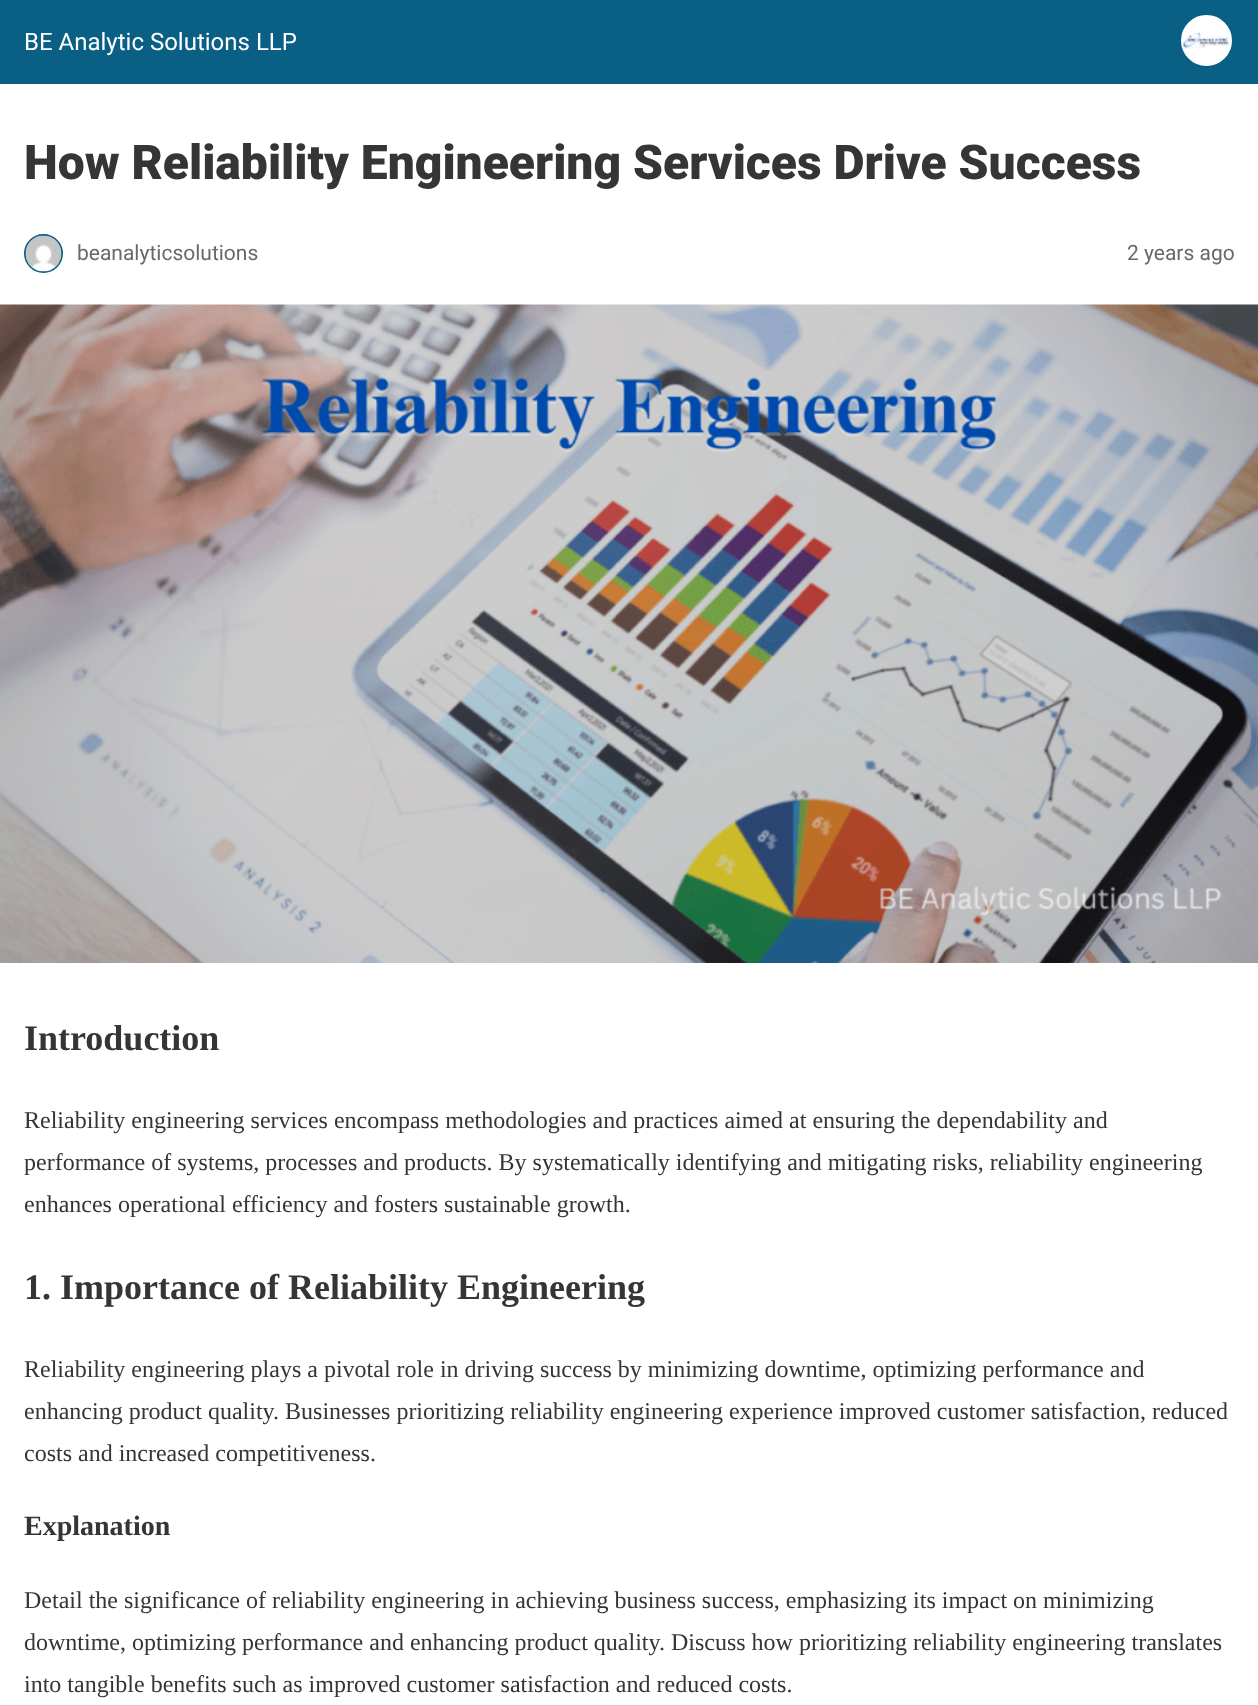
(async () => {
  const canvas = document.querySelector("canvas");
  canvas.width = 1258;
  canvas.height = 1705;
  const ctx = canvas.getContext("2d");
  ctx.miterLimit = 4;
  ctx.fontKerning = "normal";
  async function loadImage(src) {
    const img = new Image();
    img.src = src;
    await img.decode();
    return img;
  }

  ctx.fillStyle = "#ffffff";
  ctx.fillRect(0, 0, 1258, 1705);
  ctx.fillStyle = "#0a5f85";
  ctx.fillRect(0, 0, 1258, 84);
  ctx.fillStyle = "#ffffff";
  ctx.beginPath();
  ctx.arc(1206.5, 40.5, 24.5, 0, Math.PI * 2);
  ctx.fill();
  ctx.strokeStyle = "#ffffff";
  ctx.lineWidth = 2;
  ctx.stroke();
  ctx.drawImage(await loadImage("img/1.png"), 1183, 32, 46, 17);
  ctx.beginPath();
  ctx.arc(43.5, 253.5, 18.5, 0, Math.PI * 2);
  ctx.strokeStyle = "#0a5f85";
  ctx.stroke();
  ctx.drawImage(await loadImage("img/2.png"), 25, 235, 37, 37);
  ctx.drawImage(await loadImage("img/3.png"), 0, 304, 1258, 659);
  ctx.font = "24px Roboto";
  ctx.fillText("BE Analytic Solutions LLP", 24, 50);
  ctx.font = "900 48px Roboto";
  ctx.fillStyle = "#353535";
  ctx.fillText("How Reliability Engineering Services Drive Success", 24, 179);
  ctx.font = "21px Roboto";
  ctx.fillStyle = "#696969";
  ctx.fillText("beanalyticsolutions", 77, 260);
  ctx.fillText("2 years ago", 1127, 260);
  ctx.font = "bold 36px Liberation Serif";
  ctx.fillStyle = "#353535";
  ctx.fillText("Introduction", 24, 1050);
  ctx.font = "24px Liberation Serif";
  for (const [text, x, y] of [
    ["Reliability engineering services encompass methodologies and practices aimed at ensuring the dependability and", 24, 1128],
    ["performance of systems, processes and products. By systematically identifying and mitigating risks, reliability engineering", 24, 1170],
    ["enhances operational efficiency and fosters sustainable growth.", 24, 1212],
  ]) {
    ctx.fillText(text, x, y);
  }
  ctx.font = "bold 36px Liberation Serif";
  ctx.fillText("1. Importance of Reliability Engineering", 24, 1299);
  ctx.font = "24px Liberation Serif";
  for (const [text, x, y] of [
    ["Reliability engineering plays a pivotal role in driving success by minimizing downtime, optimizing performance and", 24, 1377],
    ["enhancing product quality. Businesses prioritizing reliability engineering experience improved customer satisfaction, reduced", 24, 1419],
    ["costs and increased competitiveness.", 24, 1461],
  ]) {
    ctx.fillText(text, x, y);
  }
  ctx.font = "bold 28px Liberation Serif";
  ctx.fillText("Explanation", 24, 1535);
  ctx.font = "24px Liberation Serif";
  for (const [text, x, y] of [
    ["Detail the significance of reliability engineering in achieving business success, emphasizing its impact on minimizing", 24, 1608],
    ["downtime, optimizing performance and enhancing product quality. Discuss how prioritizing reliability engineering translates", 24, 1650],
    ["into tangible benefits such as improved customer satisfaction and reduced costs.", 24, 1692],
  ]) {
    ctx.fillText(text, x, y);
  }
})();
